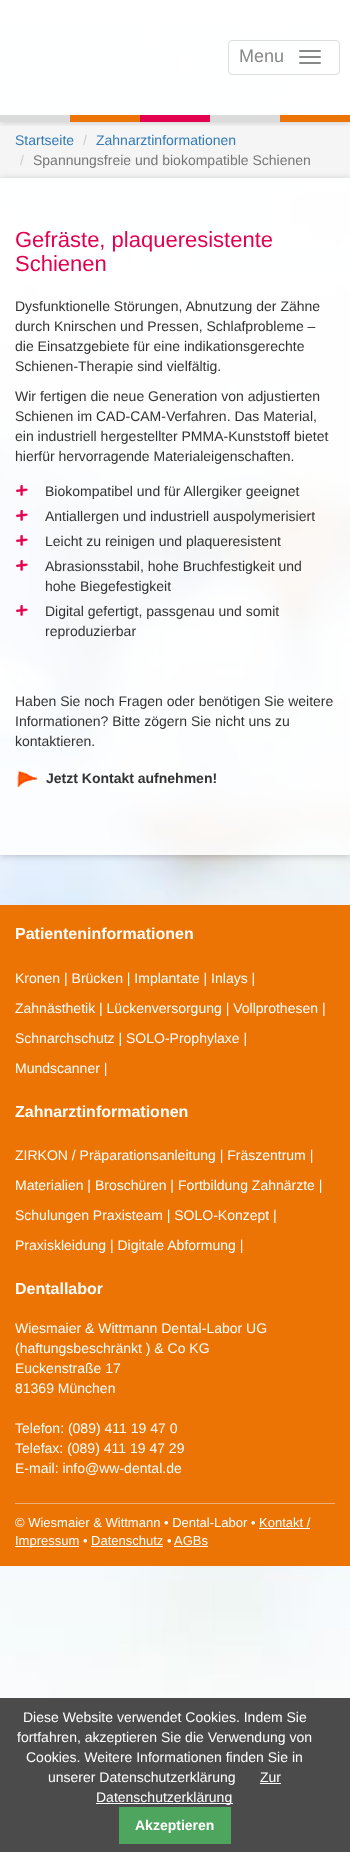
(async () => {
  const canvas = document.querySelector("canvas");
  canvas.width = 350;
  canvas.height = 1852;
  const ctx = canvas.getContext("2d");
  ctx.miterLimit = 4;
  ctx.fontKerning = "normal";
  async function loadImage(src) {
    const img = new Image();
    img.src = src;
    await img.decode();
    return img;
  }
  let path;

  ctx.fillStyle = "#ffffff";
  ctx.fillRect(0, 0, 350, 1852);
  ctx.drawImage(await loadImage("img/1.png"), 0, 0, 350, 1698);
  ctx.fillStyle = "#f5f5f5";
  ctx.fillRect(0, 122, 350, 56);
  ctx.save();
  ctx.beginPath();
  ctx.rect(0, 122, 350, 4);
  ctx.clip();
  ctx.fillStyle = "rgba(0, 0, 0, 0.2)";
  ctx.filter = "blur(3.5px)";
  ctx.beginPath();
  ctx.rect(0, 0, 350, 122);
  ctx.fill();
  ctx.filter = "none";
  ctx.restore();
  ctx.fillStyle = "rgba(255, 255, 255, 0.85)";
  ctx.fillRect(0, 0, 350, 115);
  ctx.beginPath();
  ctx.roundRect(228.5, 40.5, 111, 34, 3.5);
  ctx.strokeStyle = "#dddddd";
  ctx.stroke();
  ctx.fillStyle = "#888888";
  ctx.beginPath();
  ctx.roundRect(299, 50, 22, 2, 1);
  ctx.fill();
  ctx.beginPath();
  ctx.roundRect(299, 56, 22, 2, 1);
  ctx.fill();
  ctx.beginPath();
  ctx.roundRect(299, 62, 22, 2, 1);
  ctx.fill();
  for (const [x, y, w, h, color] of [
    [0, 115, 70, 7, "#dbdbdb"],
    [70, 115, 70, 7, "#ec7406"],
    [140, 115, 70, 7, "#e3004f"],
    [210, 115, 70, 7, "#dbdbdb"],
    [280, 115, 70, 7, "#ec7406"],
  ]) {
    ctx.fillStyle = color;
    ctx.fillRect(x, y, w, h);
  }
  ctx.save();
  path = new Path2D("M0 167H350V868H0ZM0 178H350V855H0Z");
  ctx.clip(path, "evenodd");
  ctx.fillStyle = "rgba(0, 0, 0, 0.2)";
  ctx.filter = "blur(3.5px)";
  ctx.beginPath();
  ctx.rect(0, 179, 350, 677);
  ctx.fill();
  ctx.filter = "none";
  ctx.restore();
  ctx.fillStyle = "rgba(255, 255, 255, 0.85)";
  ctx.fillRect(0, 178, 350, 677);
  ctx.drawImage(await loadImage("img/2.png"), 16, 485, 12, 11);
  ctx.drawImage(await loadImage("img/3.png"), 16, 510, 12, 11);
  ctx.drawImage(await loadImage("img/4.png"), 16, 535, 12, 11);
  ctx.drawImage(await loadImage("img/5.png"), 16, 560, 12, 11);
  ctx.drawImage(await loadImage("img/6.png"), 16, 605, 12, 11);
  ctx.drawImage(await loadImage("img/7.png"), 17, 770, 20, 17);
  for (const [x, y, w, h, color] of [
    [0, 905, 350, 661, "#ec7404"],
    [15, 1503, 320, 1, "#ecb17a"],
    [259, 1528, 51, 1, "#ffffff"],
    [15, 1546, 64, 1, "#ffffff"],
    [174, 1546, 34, 1, "#ffffff"],
    [91, 1546, 72, 1, "#ffffff"],
    [0, 1698, 350, 154, "#4b4b4b"],
    [260, 1783, 21, 1, "#ffffff"],
    [96, 1803, 137, 1, "#ffffff"],
    [119, 1807, 112, 37, "#4ea55e"],
  ]) {
    ctx.fillStyle = color;
    ctx.fillRect(x, y, w, h);
  }
  ctx.font = "18px Liberation Sans";
  ctx.fillStyle = "#888888";
  ctx.fillText("Menu", 239, 62);
  ctx.font = "14px Liberation Sans";
  ctx.fillStyle = "#337ab7";
  ctx.fillText("Startseite", 15, 145);
  ctx.fillStyle = "#cccccc";
  ctx.fillText("/", 83, 145);
  ctx.fillStyle = "#337ab7";
  ctx.fillText("Zahnarztinformationen", 96, 145);
  ctx.fillStyle = "#cccccc";
  ctx.fillText("/", 20, 165);
  ctx.fillStyle = "#777777";
  ctx.fillText("Spannungsfreie und biokompatible Schienen", 33, 165);
  ctx.font = "22px Liberation Sans";
  ctx.fillStyle = "#e3004f";
  ctx.fillText("Gefräste, plaqueresistente", 15, 247);
  ctx.fillText("Schienen", 15, 271);
  ctx.font = "14px Liberation Sans";
  ctx.fillStyle = "#333333";
  for (const [text, x, y] of [
    ["Dysfunktionelle Störungen, Abnutzung der Zähne", 15, 311],
    ["durch Knirschen und Pressen, Schlafprobleme –", 15, 331],
    ["die Einsatzgebiete für eine indikationsgerechte", 15, 351],
    ["Schienen-Therapie sind vielfältig.", 15, 371],
    ["Wir fertigen die neue Generation von adjustierten", 15, 401],
    ["Schienen im CAD-CAM-Verfahren. Das Material,", 15, 421],
    ["ein industriell hergestellter PMMA-Kunststoff bietet", 15, 441],
    ["hierfür hervorragende Materialeigenschaften.", 15, 461],
    ["Biokompatibel und für Allergiker geeignet", 45, 496],
    ["Antiallergen und industriell auspolymerisiert", 45, 521],
    ["Leicht zu reinigen und plaqueresistent", 45, 546],
    ["Abrasionsstabil, hohe Bruchfestigkeit und", 45, 571],
    ["hohe Biegefestigkeit", 45, 591],
    ["Digital gefertigt, passgenau und somit", 45, 616],
    ["reproduzierbar", 45, 636],
    ["Haben Sie noch Fragen oder benötigen Sie weitere", 15, 706],
    ["Informationen? Bitte zögern Sie nicht uns zu", 15, 726],
    ["kontaktieren.", 15, 746],
  ]) {
    ctx.fillText(text, x, y);
  }
  ctx.font = "bold 14px Liberation Sans";
  ctx.fillText("Jetzt Kontakt aufnehmen!", 46, 783);
  ctx.font = "bold 16px Liberation Sans";
  ctx.fillStyle = "#ffffff";
  ctx.fillText("Patienteninformationen", 15, 939);
  ctx.font = "14px Liberation Sans";
  for (const [text, x, y] of [
    ["Kronen | Brücken | Implantate | Inlays |", 15, 983],
    ["Zahnästhetik | Lückenversorgung | Vollprothesen |", 15, 1013],
    ["Schnarchschutz | SOLO-Prophylaxe |", 15, 1043],
    ["Mundscanner |", 15, 1073],
  ]) {
    ctx.fillText(text, x, y);
  }
  ctx.font = "bold 16px Liberation Sans";
  ctx.fillText("Zahnarztinformationen", 15, 1117);
  ctx.font = "14px Liberation Sans";
  for (const [text, x, y] of [
    ["ZIRKON / Präparationsanleitung | Fräszentrum |", 15, 1160],
    ["Materialien | Broschüren | Fortbildung Zahnärzte |", 15, 1190],
    ["Schulungen Praxisteam | SOLO-Konzept |", 15, 1220],
    ["Praxiskleidung | Digitale Abformung |", 15, 1250],
  ]) {
    ctx.fillText(text, x, y);
  }
  ctx.font = "bold 16px Liberation Sans";
  ctx.fillText("Dentallabor", 15, 1294);
  ctx.font = "14px Liberation Sans";
  for (const [text, x, y] of [
    ["Wiesmaier & Wittmann Dental-Labor UG", 15, 1333],
    ["(haftungsbeschränkt ) & Co KG", 15, 1353],
    ["Euckenstraße 17", 15, 1373],
    ["81369 München", 15, 1393],
    ["Telefon: (089) 411 19 47 0", 15, 1433],
    ["Telefax: (089) 411 19 47 29", 15, 1453],
    ["E-mail: info@ww-dental.de", 15, 1473],
  ]) {
    ctx.fillText(text, x, y);
  }
  ctx.font = "13px Liberation Sans";
  for (const [text, x, y] of [
    ["© Wiesmaier & Wittmann • Dental-Labor • Kontakt /", 15, 1527],
    ["Impressum • Datenschutz", 15, 1545],
    ["•", 167, 1545],
    ["AGBs", 174, 1545],
  ]) {
    ctx.fillText(text, x, y);
  }
  ctx.font = "14px Liberation Sans";
  for (const [text, x, y] of [
    ["Diese Website verwendet Cookies. Indem Sie", 23, 1722],
    ["fortfahren, akzeptieren Sie die Verwendung von", 17, 1742],
    ["Cookies. Weitere Informationen finden Sie in", 26, 1762],
    ["unserer Datenschutzerklärung", 48, 1782],
    ["Zur", 260, 1782],
    ["Datenschutzerklärung", 96, 1802],
  ]) {
    ctx.fillText(text, x, y);
  }
  ctx.font = "bold 14px Liberation Sans";
  ctx.fillText("Akzeptieren", 135, 1830);
})();
